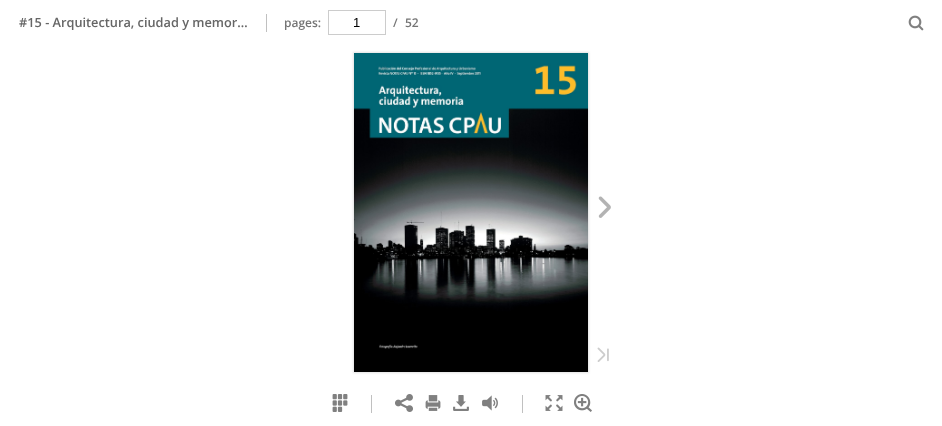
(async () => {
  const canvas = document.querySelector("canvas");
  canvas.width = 942;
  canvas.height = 426;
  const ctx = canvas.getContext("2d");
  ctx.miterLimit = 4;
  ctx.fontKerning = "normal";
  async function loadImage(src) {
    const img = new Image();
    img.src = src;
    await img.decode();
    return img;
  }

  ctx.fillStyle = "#ffffff";
  ctx.fillRect(0, 0, 942, 426);
  ctx.fillStyle = "#c0c0c0";
  ctx.fillRect(266, 14, 1, 18);
  ctx.strokeStyle = "#cccccc";
  ctx.strokeRect(328.5, 10.5, 57, 24);
  ctx.drawImage(await loadImage("img/1.png"), 908, 15, 16, 16);
  ctx.fillStyle = "rgba(140, 140, 140, 0.25)";
  ctx.filter = "blur(1px)";
  ctx.beginPath();
  ctx.rect(353, 52, 236, 321);
  ctx.fill();
  ctx.filter = "none";
  ctx.drawImage(await loadImage("img/2.png"), 354, 53, 234, 319);
  ctx.drawImage(await loadImage("img/3.png"), 598, 196, 13, 22);
  ctx.drawImage(await loadImage("img/4.png"), 597, 347, 12, 15);
  ctx.drawImage(await loadImage("img/5.png"), 332, 394, 16, 18);
  ctx.fillStyle = "#c0c0c0";
  ctx.fillRect(371, 395, 1, 18);
  ctx.drawImage(await loadImage("img/6.png"), 395, 394, 18, 18);
  ctx.drawImage(await loadImage("img/7.png"), 425, 395, 16, 16);
  ctx.drawImage(await loadImage("img/8.png"), 453, 395, 16, 16);
  ctx.drawImage(await loadImage("img/9.png"), 482, 395, 16, 16);
  ctx.fillRect(522, 395, 1, 18);
  ctx.drawImage(await loadImage("img/10.png"), 545, 395, 18, 16);
  ctx.drawImage(await loadImage("img/11.png"), 574, 394, 18, 18);
  ctx.font = "600 12.75px Open Sans";
  ctx.fillStyle = "#666666";
  ctx.fillText("#15 - Arquitectura, ciudad y memor…", 19, 27);
  ctx.font = "600 12px Open Sans";
  ctx.fillStyle = "#757575";
  ctx.fillText("pages:", 284, 27);
  ctx.font = "13px Liberation Sans";
  ctx.fillStyle = "#000000";
  ctx.fillText("1", 353, 27);
  ctx.font = "600 12px Open Sans";
  ctx.fillStyle = "#757575";
  ctx.fillText("/", 393, 27);
  ctx.fillText("52", 405, 27);
})();
